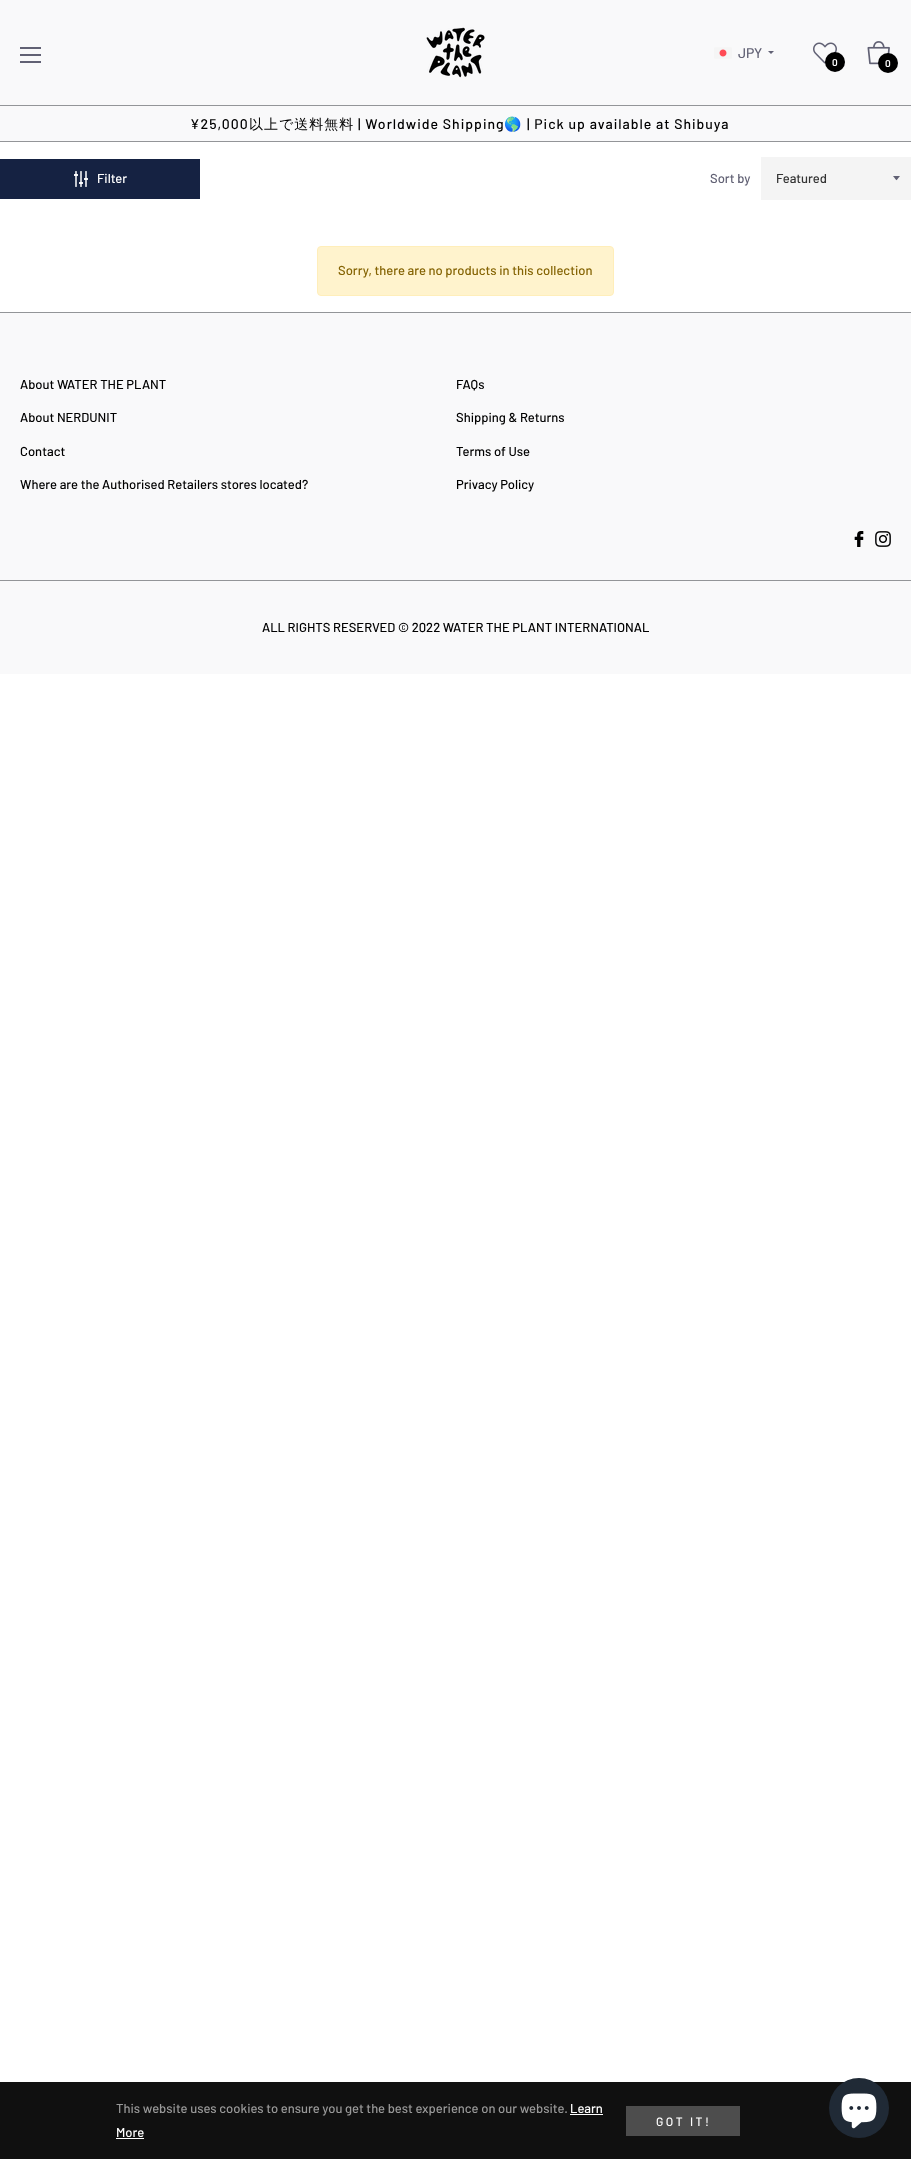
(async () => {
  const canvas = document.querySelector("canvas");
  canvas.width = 911;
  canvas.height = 2159;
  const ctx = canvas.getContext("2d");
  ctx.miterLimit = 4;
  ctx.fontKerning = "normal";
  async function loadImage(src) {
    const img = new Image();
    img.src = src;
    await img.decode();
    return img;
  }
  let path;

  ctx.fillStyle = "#ffffff";
  ctx.fillRect(0, 0, 911, 2159);
  for (const [x, y, w, h, color] of [
    [0, 0, 911, 105, "#f9f9fa"],
    [0, 105, 911, 1, "#939598"],
    [20, 47, 21, 2, "#616174"],
    [20, 54, 21, 2, "#616174"],
    [20, 61, 21, 2, "#616174"],
  ]) {
    ctx.fillStyle = color;
    ctx.fillRect(x, y, w, h);
  }
  ctx.drawImage(await loadImage("img/1.png"), 426, 27, 59, 51);
  ctx.drawImage(await loadImage("img/2.png"), 714, 47, 18, 12);
  path = new Path2D("M768 51H774L771 54Z");
  ctx.fill(path);
  ctx.drawImage(await loadImage("img/3.png"), 813, 42, 24, 22);
  ctx.fillStyle = "#000000";
  ctx.beginPath();
  ctx.arc(835, 62, 10, 0, Math.PI * 2);
  ctx.fill();
  ctx.drawImage(await loadImage("img/4.png"), 867, 41, 23, 24);
  ctx.beginPath();
  ctx.arc(888, 63, 10, 0, Math.PI * 2);
  ctx.fill();
  for (const [x, y, w, h, color] of [
    [0, 106, 911, 35, "#f9f9fa"],
    [0, 141, 911, 1, "#939598"],
    [0, 159, 200, 40, "#152242"],
  ]) {
    ctx.fillStyle = color;
    ctx.fillRect(x, y, w, h);
  }
  ctx.drawImage(await loadImage("img/5.png"), 74, 171, 14, 16);
  ctx.fillStyle = "#f4f4f4";
  ctx.fillRect(761, 157, 150, 43);
  ctx.fillStyle = "#616174";
  path = new Path2D("M893 176C897.5 181.5 895.5 181.5 900 176Z");
  ctx.fill(path);
  ctx.fillStyle = "#fff3cd";
  ctx.beginPath();
  ctx.roundRect(317.5, 246.5, 296, 49, 3.5);
  ctx.fill();
  ctx.strokeStyle = "#ffeeba";
  ctx.stroke();
  ctx.fillStyle = "#f9f9fa";
  ctx.fillRect(0, 313, 911, 361);
  ctx.fillStyle = "#939598";
  ctx.fillRect(0, 312, 911, 1);
  ctx.drawImage(await loadImage("img/6.png"), 854, 531, 10, 16);
  ctx.drawImage(await loadImage("img/7.png"), 875, 531, 16, 16);
  for (const [x, y, w, h, color] of [
    [0, 580, 911, 1, "#939598"],
    [0, 2082, 911, 77, "#101010"],
    [570, 2114, 33, 1, "#ffffff"],
    [116, 2138, 28, 1, "#ffffff"],
    [626, 2106, 114, 30, "#4d4d4d"],
  ]) {
    ctx.fillStyle = color;
    ctx.fillRect(x, y, w, h);
  }
  ctx.fillStyle = "#202a36";
  ctx.beginPath();
  ctx.arc(859, 2108, 30, 0, Math.PI * 2);
  ctx.fill();
  ctx.drawImage(await loadImage("img/8.png"), 841, 2093, 36, 36);
  ctx.font = "500 14px Barlow";
  ctx.fillStyle = "#616174";
  ctx.fillText("JPY", 738, 58);
  ctx.font = "600 10px Barlow";
  ctx.fillStyle = "#ffffff";
  ctx.fillText("0", 832, 66);
  ctx.fillText("0", 885, 67);
  ctx.letterSpacing = "1px";
  ctx.font = "500 14px Barlow";
  ctx.fillStyle = "#000000";
  ctx.fillText("¥25,000", 190, 129);
  ctx.font = "500 14px WenQuanYi Zen Hei";
  ctx.fillText("以上で送料無料", 249, 129);
  ctx.font = "500 14px Barlow";
  ctx.fillText("| Worldwide Shipping", 358, 129);
  ctx.font = "14px Noto Color Emoji";
  ctx.fillText("🌎", 504, 129);
  ctx.font = "500 14px Barlow";
  ctx.fillText("| Pick up available at Shibuya", 527, 129);
  ctx.letterSpacing = "0px";
  ctx.font = "500 13px Barlow";
  ctx.fillStyle = "#ffffff";
  ctx.fillText("Filter", 97, 183);
  ctx.fillStyle = "#616174";
  ctx.fillText("Sort by", 710, 183);
  ctx.fillStyle = "#333333";
  ctx.fillText("Featured", 776, 183);
  ctx.fillStyle = "#856404";
  ctx.fillText("Sorry, there are no products in this collection", 338, 275);
  ctx.fillStyle = "#000000";
  for (const [text, x, y] of [
    ["About WATER THE PLANT", 20, 389],
    ["About NERDUNIT", 20, 422],
    ["Contact", 20, 456],
    ["Where are the Authorised Retailers stores located?", 20, 489],
    ["FAQs", 456, 389],
    ["Shipping & Returns", 456, 422],
    ["Terms of Use", 456, 456],
    ["Privacy Policy", 456, 489],
    ["ALL RIGHTS RESERVED © 2022 WATER THE PLANT INTERNATIONAL", 262, 632],
  ]) {
    ctx.fillText(text, x, y);
  }
  ctx.fillStyle = "#999999";
  ctx.fillText("This website uses cookies to ensure you get the best experience on our website.", 116, 2113);
  ctx.fillStyle = "#ffffff";
  ctx.fillText("Learn", 570, 2113);
  ctx.fillText("More", 116, 2137);
  ctx.letterSpacing = "2.5px";
  ctx.font = "500 12px Barlow";
  ctx.fillText("GOT IT!", 656, 2126);
})();
